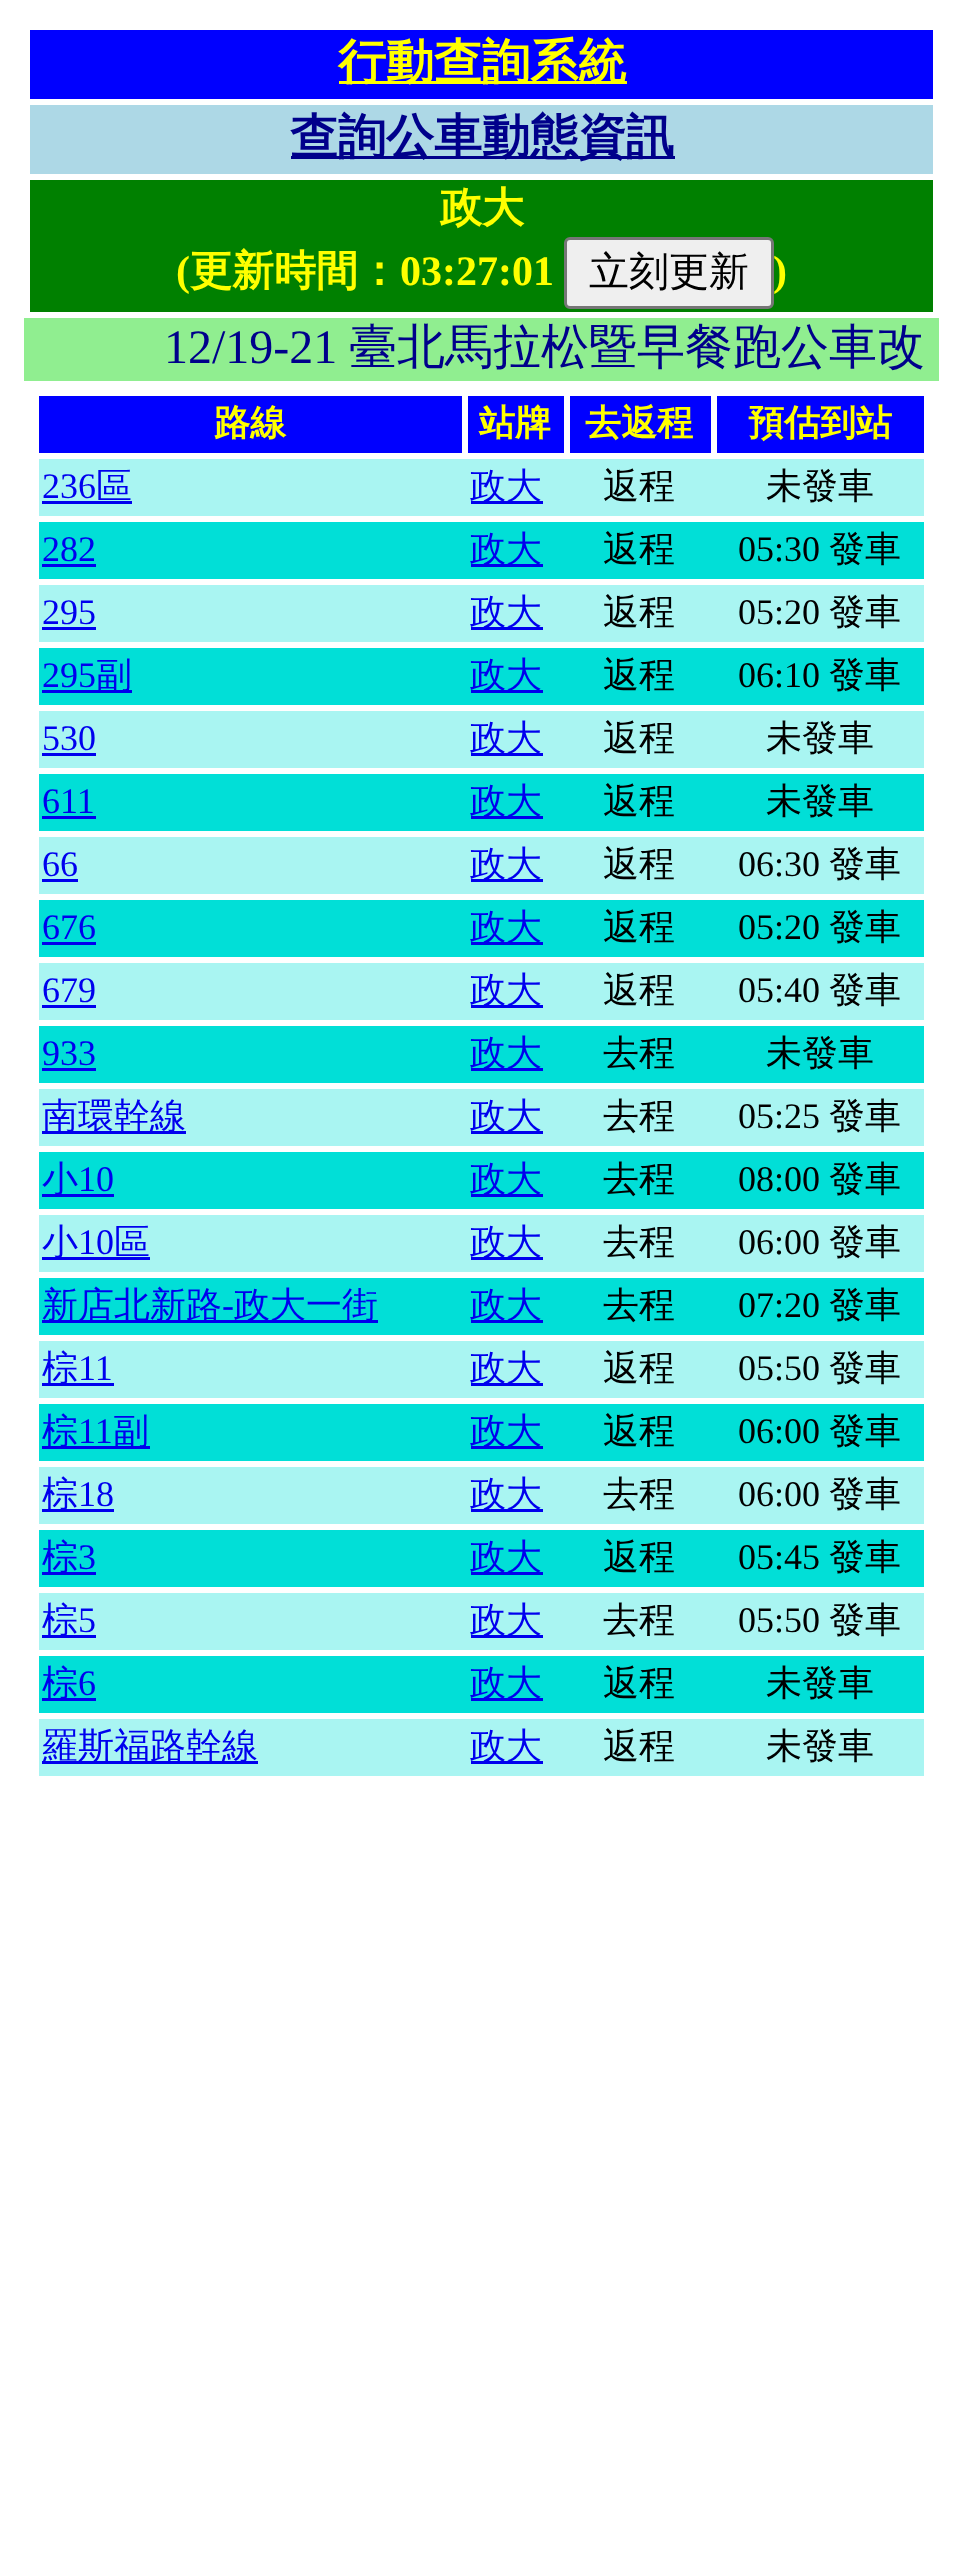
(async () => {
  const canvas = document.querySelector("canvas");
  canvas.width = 962;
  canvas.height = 2566;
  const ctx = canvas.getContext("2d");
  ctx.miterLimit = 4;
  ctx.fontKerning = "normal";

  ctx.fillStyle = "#ffffff";
  ctx.fillRect(0, 0, 962, 2566);
  for (const [x, y, w, h, color] of [
    [30, 30, 903, 69, "#0000ff"],
    [339, 81, 288, 3, "#ffff00"],
    [30, 105, 903, 69, "#add8e6"],
    [291, 156, 384, 3, "#00008b"],
    [30, 180, 903, 132, "#008000"],
  ]) {
    ctx.fillStyle = color;
    ctx.fillRect(x, y, w, h);
  }
  ctx.fillStyle = "#efefef";
  ctx.beginPath();
  ctx.roundRect(565.5, 238.5, 207, 69, 4.5);
  ctx.fill();
  ctx.strokeStyle = "#767676";
  ctx.lineWidth = 3;
  ctx.stroke();
  for (const [x, y, w, h, color] of [
    [24, 318, 915, 63, "#90ee90"],
    [39, 396, 423, 57, "#0000ff"],
    [468, 396, 96, 57, "#0000ff"],
    [570, 396, 141, 57, "#0000ff"],
    [717, 396, 207, 57, "#0000ff"],
    [39, 459, 885, 57, "#a9f5f2"],
    [42, 501, 90, 3, "#0000ee"],
    [471, 501, 72, 3, "#0000ee"],
    [39, 522, 885, 57, "#01dfd7"],
    [42, 564, 54, 3, "#0000ee"],
    [471, 564, 72, 3, "#0000ee"],
    [39, 585, 885, 57, "#a9f5f2"],
    [42, 627, 54, 3, "#0000ee"],
    [471, 627, 72, 3, "#0000ee"],
    [39, 648, 885, 57, "#01dfd7"],
    [42, 690, 90, 3, "#0000ee"],
    [471, 690, 72, 3, "#0000ee"],
    [39, 711, 885, 57, "#a9f5f2"],
    [42, 753, 54, 3, "#0000ee"],
    [471, 753, 72, 3, "#0000ee"],
    [39, 774, 885, 57, "#01dfd7"],
    [42, 816, 54, 3, "#0000ee"],
    [471, 816, 72, 3, "#0000ee"],
    [39, 837, 885, 57, "#a9f5f2"],
    [42, 879, 36, 3, "#0000ee"],
    [471, 879, 72, 3, "#0000ee"],
    [39, 900, 885, 57, "#01dfd7"],
    [42, 942, 54, 3, "#0000ee"],
    [471, 942, 72, 3, "#0000ee"],
    [39, 963, 885, 57, "#a9f5f2"],
    [42, 1005, 54, 3, "#0000ee"],
    [471, 1005, 72, 3, "#0000ee"],
    [39, 1026, 885, 57, "#01dfd7"],
    [42, 1068, 54, 3, "#0000ee"],
    [471, 1068, 72, 3, "#0000ee"],
    [39, 1089, 885, 57, "#a9f5f2"],
    [42, 1131, 144, 3, "#0000ee"],
    [471, 1131, 72, 3, "#0000ee"],
    [39, 1152, 885, 57, "#01dfd7"],
    [42, 1194, 72, 3, "#0000ee"],
    [471, 1194, 72, 3, "#0000ee"],
    [39, 1215, 885, 57, "#a9f5f2"],
    [42, 1257, 108, 3, "#0000ee"],
    [471, 1257, 72, 3, "#0000ee"],
    [39, 1278, 885, 57, "#01dfd7"],
    [42, 1320, 336, 3, "#0000ee"],
    [471, 1320, 72, 3, "#0000ee"],
    [39, 1341, 885, 57, "#a9f5f2"],
    [42, 1383, 72, 3, "#0000ee"],
    [471, 1383, 72, 3, "#0000ee"],
    [39, 1404, 885, 57, "#01dfd7"],
    [42, 1446, 108, 3, "#0000ee"],
    [471, 1446, 72, 3, "#0000ee"],
    [39, 1467, 885, 57, "#a9f5f2"],
    [42, 1509, 72, 3, "#0000ee"],
    [471, 1509, 72, 3, "#0000ee"],
    [39, 1530, 885, 57, "#01dfd7"],
    [42, 1572, 54, 3, "#0000ee"],
    [471, 1572, 72, 3, "#0000ee"],
    [39, 1593, 885, 57, "#a9f5f2"],
    [42, 1635, 54, 3, "#0000ee"],
    [471, 1635, 72, 3, "#0000ee"],
    [39, 1656, 885, 57, "#01dfd7"],
    [42, 1698, 54, 3, "#0000ee"],
    [471, 1698, 72, 3, "#0000ee"],
    [39, 1719, 885, 57, "#a9f5f2"],
    [42, 1761, 216, 3, "#0000ee"],
    [471, 1761, 72, 3, "#0000ee"],
  ]) {
    ctx.fillStyle = color;
    ctx.fillRect(x, y, w, h);
  }
  ctx.font = "bold 48px WenQuanYi Zen Hei";
  ctx.fillStyle = "#ffff00";
  ctx.fillText("行動查詢系統", 338, 78);
  ctx.fillStyle = "#00008b";
  ctx.fillText("查詢公車動態資訊", 290, 153);
  ctx.font = "bold 42px WenQuanYi Zen Hei";
  ctx.fillStyle = "#ffff00";
  ctx.fillText("政大", 440, 222);
  ctx.font = "bold 42px Liberation Serif";
  ctx.fillText("(", 176, 285);
  ctx.font = "bold 42px WenQuanYi Zen Hei";
  ctx.fillText("更新時間：", 190, 285);
  ctx.font = "bold 42px Liberation Serif";
  ctx.fillText("03:27:01", 400, 285);
  ctx.font = "500 40px WenQuanYi Zen Hei";
  ctx.fillStyle = "#000000";
  ctx.fillText("立刻更新", 589, 285);
  ctx.font = "bold 42px Liberation Serif";
  ctx.fillStyle = "#ffff00";
  ctx.fillText(")", 773, 285);
  ctx.font = "48px Liberation Serif";
  ctx.fillStyle = "#00008b";
  ctx.fillText("12/19-21", 164, 363);
  ctx.font = "500 48px WenQuanYi Zen Hei";
  ctx.fillText("臺北馬拉松暨早餐跑公車改", 349, 363);
  ctx.font = "bold 36px WenQuanYi Zen Hei";
  ctx.fillStyle = "#ffff00";
  for (const [text, x, y] of [
    ["路線", 214, 435],
    ["站牌", 479, 435],
    ["去返程", 585, 435],
    ["預估到站", 748, 435],
  ]) {
    ctx.fillText(text, x, y);
  }
  ctx.font = "36px Liberation Serif";
  ctx.fillStyle = "#0000ee";
  ctx.fillText("236", 42, 498);
  ctx.font = "500 36px WenQuanYi Zen Hei";
  ctx.fillText("區", 96, 498);
  ctx.fillText("政大", 470, 498);
  ctx.fillStyle = "#000000";
  ctx.fillText("返程", 603, 498);
  ctx.fillText("未發車", 766, 498);
  ctx.font = "36px Liberation Serif";
  ctx.fillStyle = "#0000ee";
  ctx.fillText("282", 42, 561);
  ctx.font = "500 36px WenQuanYi Zen Hei";
  ctx.fillText("政大", 470, 561);
  ctx.fillStyle = "#000000";
  ctx.fillText("返程", 603, 561);
  ctx.font = "36px Liberation Serif";
  ctx.fillText("05:30", 738, 561);
  ctx.font = "500 36px WenQuanYi Zen Hei";
  ctx.fillText("發車", 829, 561);
  ctx.font = "36px Liberation Serif";
  ctx.fillStyle = "#0000ee";
  ctx.fillText("295", 42, 624);
  ctx.font = "500 36px WenQuanYi Zen Hei";
  ctx.fillText("政大", 470, 624);
  ctx.fillStyle = "#000000";
  ctx.fillText("返程", 603, 624);
  ctx.font = "36px Liberation Serif";
  ctx.fillText("05:20", 738, 624);
  ctx.font = "500 36px WenQuanYi Zen Hei";
  ctx.fillText("發車", 829, 624);
  ctx.font = "36px Liberation Serif";
  ctx.fillStyle = "#0000ee";
  ctx.fillText("295", 42, 687);
  ctx.font = "500 36px WenQuanYi Zen Hei";
  ctx.fillText("副", 96, 687);
  ctx.fillText("政大", 470, 687);
  ctx.fillStyle = "#000000";
  ctx.fillText("返程", 603, 687);
  ctx.font = "36px Liberation Serif";
  ctx.fillText("06:10", 738, 687);
  ctx.font = "500 36px WenQuanYi Zen Hei";
  ctx.fillText("發車", 829, 687);
  ctx.font = "36px Liberation Serif";
  ctx.fillStyle = "#0000ee";
  ctx.fillText("530", 42, 750);
  ctx.font = "500 36px WenQuanYi Zen Hei";
  ctx.fillText("政大", 470, 750);
  ctx.fillStyle = "#000000";
  ctx.fillText("返程", 603, 750);
  ctx.fillText("未發車", 766, 750);
  ctx.font = "36px Liberation Serif";
  ctx.fillStyle = "#0000ee";
  ctx.fillText("611", 42, 813);
  ctx.font = "500 36px WenQuanYi Zen Hei";
  ctx.fillText("政大", 470, 813);
  ctx.fillStyle = "#000000";
  ctx.fillText("返程", 603, 813);
  ctx.fillText("未發車", 766, 813);
  ctx.font = "36px Liberation Serif";
  ctx.fillStyle = "#0000ee";
  ctx.fillText("66", 42, 876);
  ctx.font = "500 36px WenQuanYi Zen Hei";
  ctx.fillText("政大", 470, 876);
  ctx.fillStyle = "#000000";
  ctx.fillText("返程", 603, 876);
  ctx.font = "36px Liberation Serif";
  ctx.fillText("06:30", 738, 876);
  ctx.font = "500 36px WenQuanYi Zen Hei";
  ctx.fillText("發車", 829, 876);
  ctx.font = "36px Liberation Serif";
  ctx.fillStyle = "#0000ee";
  ctx.fillText("676", 42, 939);
  ctx.font = "500 36px WenQuanYi Zen Hei";
  ctx.fillText("政大", 470, 939);
  ctx.fillStyle = "#000000";
  ctx.fillText("返程", 603, 939);
  ctx.font = "36px Liberation Serif";
  ctx.fillText("05:20", 738, 939);
  ctx.font = "500 36px WenQuanYi Zen Hei";
  ctx.fillText("發車", 829, 939);
  ctx.font = "36px Liberation Serif";
  ctx.fillStyle = "#0000ee";
  ctx.fillText("679", 42, 1002);
  ctx.font = "500 36px WenQuanYi Zen Hei";
  ctx.fillText("政大", 470, 1002);
  ctx.fillStyle = "#000000";
  ctx.fillText("返程", 603, 1002);
  ctx.font = "36px Liberation Serif";
  ctx.fillText("05:40", 738, 1002);
  ctx.font = "500 36px WenQuanYi Zen Hei";
  ctx.fillText("發車", 829, 1002);
  ctx.font = "36px Liberation Serif";
  ctx.fillStyle = "#0000ee";
  ctx.fillText("933", 42, 1065);
  ctx.font = "500 36px WenQuanYi Zen Hei";
  ctx.fillText("政大", 470, 1065);
  ctx.fillStyle = "#000000";
  ctx.fillText("去程", 603, 1065);
  ctx.fillText("未發車", 766, 1065);
  ctx.fillStyle = "#0000ee";
  ctx.fillText("南環幹線", 42, 1128);
  ctx.fillText("政大", 470, 1128);
  ctx.fillStyle = "#000000";
  ctx.fillText("去程", 603, 1128);
  ctx.font = "36px Liberation Serif";
  ctx.fillText("05:25", 738, 1128);
  ctx.font = "500 36px WenQuanYi Zen Hei";
  ctx.fillText("發車", 829, 1128);
  ctx.fillStyle = "#0000ee";
  ctx.fillText("小", 42, 1191);
  ctx.font = "36px Liberation Serif";
  ctx.fillText("10", 78, 1191);
  ctx.font = "500 36px WenQuanYi Zen Hei";
  ctx.fillText("政大", 470, 1191);
  ctx.fillStyle = "#000000";
  ctx.fillText("去程", 603, 1191);
  ctx.font = "36px Liberation Serif";
  ctx.fillText("08:00", 738, 1191);
  ctx.font = "500 36px WenQuanYi Zen Hei";
  ctx.fillText("發車", 829, 1191);
  ctx.fillStyle = "#0000ee";
  ctx.fillText("小", 42, 1254);
  ctx.font = "36px Liberation Serif";
  ctx.fillText("10", 78, 1254);
  ctx.font = "500 36px WenQuanYi Zen Hei";
  ctx.fillText("區", 114, 1254);
  ctx.fillText("政大", 470, 1254);
  ctx.fillStyle = "#000000";
  ctx.fillText("去程", 603, 1254);
  ctx.font = "36px Liberation Serif";
  ctx.fillText("06:00", 738, 1254);
  ctx.font = "500 36px WenQuanYi Zen Hei";
  ctx.fillText("發車", 829, 1254);
  ctx.fillStyle = "#0000ee";
  ctx.fillText("新店北新路", 42, 1317);
  ctx.font = "36px Liberation Serif";
  ctx.fillText("-", 222, 1317);
  ctx.font = "500 36px WenQuanYi Zen Hei";
  ctx.fillText("政大一街", 234, 1317);
  ctx.fillText("政大", 470, 1317);
  ctx.fillStyle = "#000000";
  ctx.fillText("去程", 603, 1317);
  ctx.font = "36px Liberation Serif";
  ctx.fillText("07:20", 738, 1317);
  ctx.font = "500 36px WenQuanYi Zen Hei";
  ctx.fillText("發車", 829, 1317);
  ctx.fillStyle = "#0000ee";
  ctx.fillText("棕", 42, 1380);
  ctx.font = "36px Liberation Serif";
  ctx.fillText("11", 78, 1380);
  ctx.font = "500 36px WenQuanYi Zen Hei";
  ctx.fillText("政大", 470, 1380);
  ctx.fillStyle = "#000000";
  ctx.fillText("返程", 603, 1380);
  ctx.font = "36px Liberation Serif";
  ctx.fillText("05:50", 738, 1380);
  ctx.font = "500 36px WenQuanYi Zen Hei";
  ctx.fillText("發車", 829, 1380);
  ctx.fillStyle = "#0000ee";
  ctx.fillText("棕", 42, 1443);
  ctx.font = "36px Liberation Serif";
  ctx.fillText("11", 78, 1443);
  ctx.font = "500 36px WenQuanYi Zen Hei";
  ctx.fillText("副", 113, 1443);
  ctx.fillText("政大", 470, 1443);
  ctx.fillStyle = "#000000";
  ctx.fillText("返程", 603, 1443);
  ctx.font = "36px Liberation Serif";
  ctx.fillText("06:00", 738, 1443);
  ctx.font = "500 36px WenQuanYi Zen Hei";
  ctx.fillText("發車", 829, 1443);
  ctx.fillStyle = "#0000ee";
  ctx.fillText("棕", 42, 1506);
  ctx.font = "36px Liberation Serif";
  ctx.fillText("18", 78, 1506);
  ctx.font = "500 36px WenQuanYi Zen Hei";
  ctx.fillText("政大", 470, 1506);
  ctx.fillStyle = "#000000";
  ctx.fillText("去程", 603, 1506);
  ctx.font = "36px Liberation Serif";
  ctx.fillText("06:00", 738, 1506);
  ctx.font = "500 36px WenQuanYi Zen Hei";
  ctx.fillText("發車", 829, 1506);
  ctx.fillStyle = "#0000ee";
  ctx.fillText("棕", 42, 1569);
  ctx.font = "36px Liberation Serif";
  ctx.fillText("3", 78, 1569);
  ctx.font = "500 36px WenQuanYi Zen Hei";
  ctx.fillText("政大", 470, 1569);
  ctx.fillStyle = "#000000";
  ctx.fillText("返程", 603, 1569);
  ctx.font = "36px Liberation Serif";
  ctx.fillText("05:45", 738, 1569);
  ctx.font = "500 36px WenQuanYi Zen Hei";
  ctx.fillText("發車", 829, 1569);
  ctx.fillStyle = "#0000ee";
  ctx.fillText("棕", 42, 1632);
  ctx.font = "36px Liberation Serif";
  ctx.fillText("5", 78, 1632);
  ctx.font = "500 36px WenQuanYi Zen Hei";
  ctx.fillText("政大", 470, 1632);
  ctx.fillStyle = "#000000";
  ctx.fillText("去程", 603, 1632);
  ctx.font = "36px Liberation Serif";
  ctx.fillText("05:50", 738, 1632);
  ctx.font = "500 36px WenQuanYi Zen Hei";
  ctx.fillText("發車", 829, 1632);
  ctx.fillStyle = "#0000ee";
  ctx.fillText("棕", 42, 1695);
  ctx.font = "36px Liberation Serif";
  ctx.fillText("6", 78, 1695);
  ctx.font = "500 36px WenQuanYi Zen Hei";
  ctx.fillText("政大", 470, 1695);
  ctx.fillStyle = "#000000";
  ctx.fillText("返程", 603, 1695);
  ctx.fillText("未發車", 766, 1695);
  ctx.fillStyle = "#0000ee";
  ctx.fillText("羅斯福路幹線", 42, 1758);
  ctx.fillText("政大", 470, 1758);
  ctx.fillStyle = "#000000";
  ctx.fillText("返程", 603, 1758);
  ctx.fillText("未發車", 766, 1758);
})();
